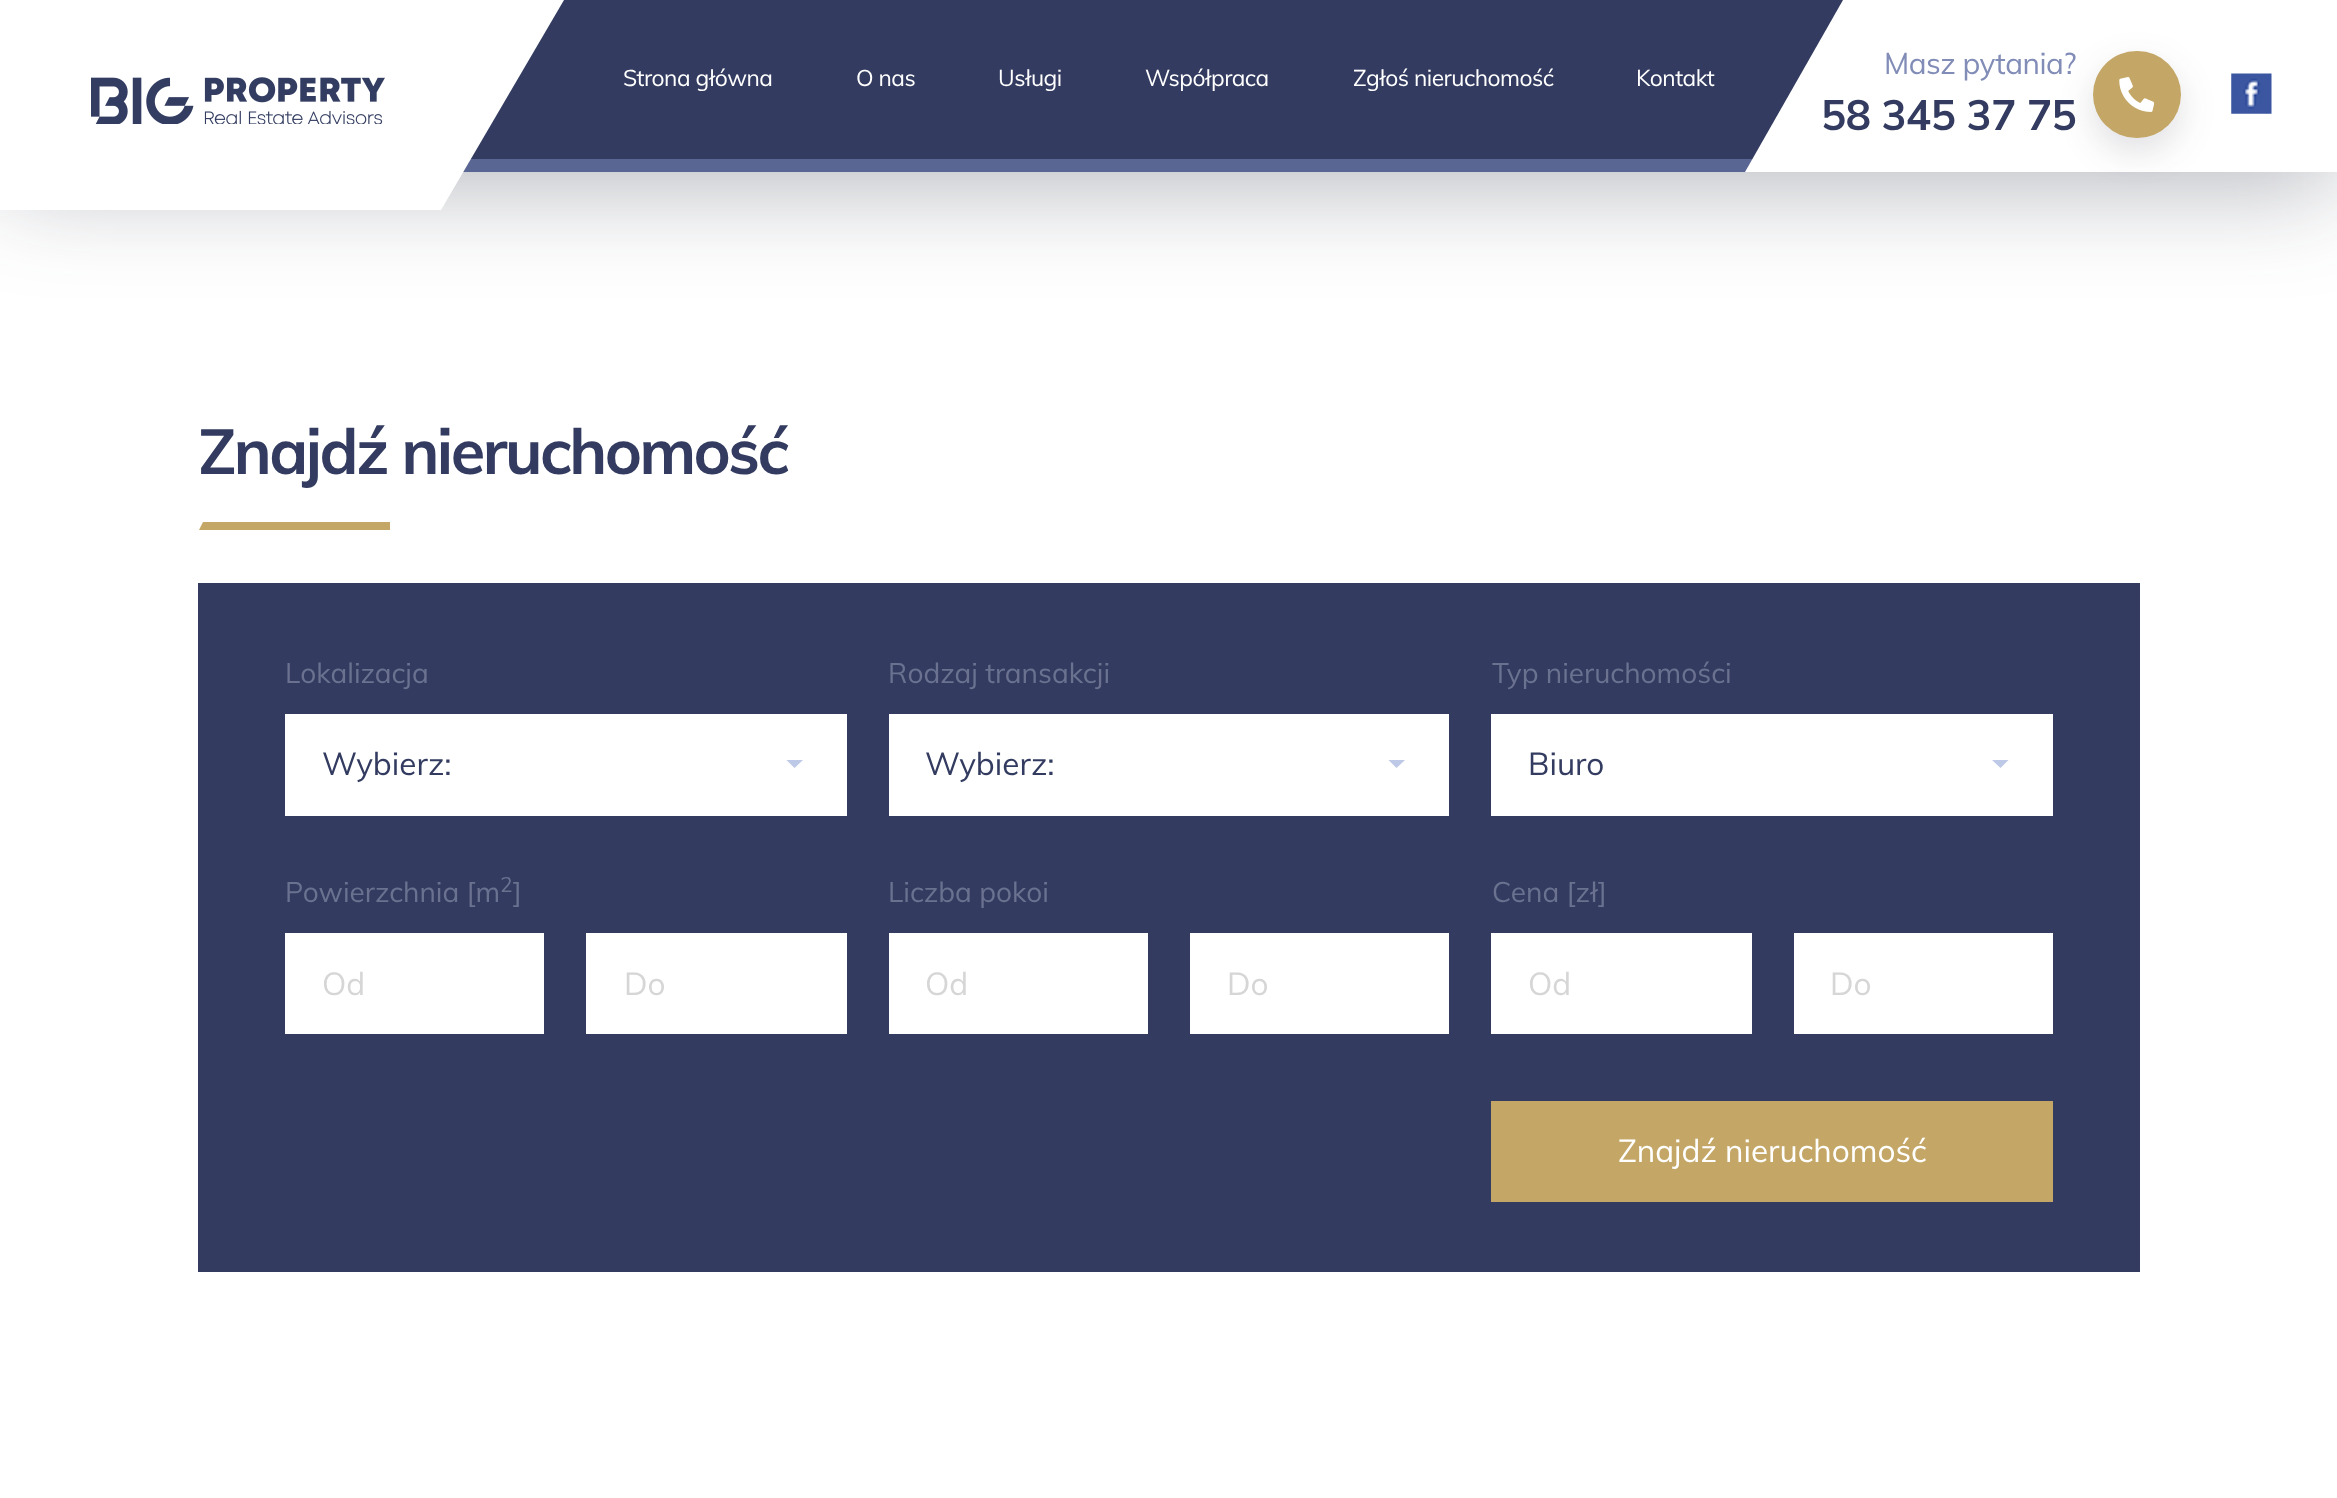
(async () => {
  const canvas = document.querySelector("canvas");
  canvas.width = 2337;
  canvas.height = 1498;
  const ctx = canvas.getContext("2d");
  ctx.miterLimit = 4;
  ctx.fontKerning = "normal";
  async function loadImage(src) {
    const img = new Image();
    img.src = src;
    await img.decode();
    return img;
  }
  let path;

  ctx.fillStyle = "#ffffff";
  ctx.fillRect(0, 0, 2337, 1498);
  ctx.fillStyle = "rgba(44, 49, 67, 0.35)";
  ctx.filter = "blur(51px)";
  ctx.beginPath();
  ctx.rect(0, 14, 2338, 172);
  ctx.fill();
  ctx.filter = "none";
  ctx.fillStyle = "#333c60";
  ctx.fillRect(470, 0, 1373, 159);
  ctx.fillStyle = "#596592";
  ctx.fillRect(463, 159, 1290, 13);
  ctx.fillStyle = "#ffffff";
  path = new Path2D("M-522 0H564L441 210H-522Z");
  ctx.fill(path);
  ctx.drawImage(await loadImage("img/1.png"), 91, 77, 294, 47);
  path = new Path2D("M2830 172H1745L1843 0H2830Z");
  ctx.fill(path);
  ctx.fillStyle = "rgba(44, 49, 67, 0.15)";
  ctx.filter = "blur(17.5px)";
  ctx.beginPath();
  ctx.roundRect(2093, 65, 88, 87, 43.5);
  ctx.fill();
  ctx.filter = "none";
  ctx.fillStyle = "#c4a766";
  ctx.beginPath();
  ctx.roundRect(2093, 51, 88, 87, 43.5);
  ctx.fill();
  ctx.drawImage(await loadImage("img/2.png"), 2119, 77, 35, 35);
  ctx.drawImage(await loadImage("img/3.png"), 2231, 73, 41, 41);
  ctx.save();
  ctx.beginPath();
  ctx.rect(198, 522, 192, 8);
  ctx.clip();
  path = new Path2D("M204 520H401L394 532H198Z");
  ctx.fill(path);
  ctx.restore();
  ctx.fillStyle = "#333c60";
  ctx.fillRect(198, 583, 1942, 689);
  ctx.fillStyle = "#ffffff";
  ctx.fillRect(285, 714, 562, 102);
  ctx.save();
  ctx.beginPath();
  ctx.rect(786, 760, 17, 8);
  ctx.clip();
  ctx.fillStyle = "#bdc9e6";
  path = new Path2D("M786 759.5H803.5L794.5 768Z");
  ctx.fill(path);
  ctx.restore();
  ctx.fillRect(889, 714, 560, 102);
  ctx.save();
  ctx.beginPath();
  ctx.rect(1388, 760, 17, 8);
  ctx.clip();
  ctx.fillStyle = "#bdc9e6";
  path = new Path2D("M1388 759.5H1405.5L1396.5 768Z");
  ctx.fill(path);
  ctx.restore();
  ctx.fillRect(1491, 714, 562, 102);
  ctx.save();
  ctx.beginPath();
  ctx.rect(1992, 760, 17, 8);
  ctx.clip();
  ctx.fillStyle = "#bdc9e6";
  path = new Path2D("M1991.5 759.5H2009L2000.5 768Z");
  ctx.fill(path);
  ctx.restore();
  for (const [x, y, w, h, color] of [
    [285, 933, 259, 101, "#ffffff"],
    [586, 933, 261, 101, "#ffffff"],
    [889, 933, 259, 101, "#ffffff"],
    [1190, 933, 259, 101, "#ffffff"],
    [1491, 933, 261, 101, "#ffffff"],
    [1794, 933, 259, 101, "#ffffff"],
    [1491, 1101, 562, 101, "#c4a766"],
  ]) {
    ctx.fillStyle = color;
    ctx.fillRect(x, y, w, h);
  }
  ctx.letterSpacing = "-0.5px";
  ctx.font = "22.75px Muli";
  ctx.fillStyle = "#ffffff";
  for (const [text, x, y] of [
    ["Strona główna", 623, 86],
    ["O nas", 856, 86],
    ["Usługi", 998, 86],
    ["Współpraca", 1145, 86],
    ["Zgłoś nieruchomość", 1353, 86],
    ["Kontakt", 1636, 86],
  ]) {
    ctx.fillText(text, x, y);
  }
  ctx.font = "29.75px Muli";
  ctx.fillStyle = "#818cb7";
  ctx.fillText("Masz pytania?", 1884, 74);
  ctx.font = "bold 42px Muli";
  ctx.fillStyle = "#333c60";
  ctx.fillText("58 345 37 75", 1821, 130);
  ctx.letterSpacing = "-2.5px";
  ctx.font = "bold 63px Muli";
  ctx.fillText("Znajdź nieruchomość", 198, 474);
  ctx.letterSpacing = "0px";
  ctx.font = "28px Muli";
  ctx.fillStyle = "#6a7290";
  ctx.fillText("Lokalizacja", 285, 683);
  ctx.font = "31.5px Muli";
  ctx.fillStyle = "#333c60";
  ctx.fillText("Wybierz:", 322, 775);
  ctx.font = "28px Muli";
  ctx.fillStyle = "#6a7290";
  ctx.fillText("Rodzaj transakcji", 888, 683);
  ctx.font = "31.5px Muli";
  ctx.fillStyle = "#333c60";
  ctx.fillText("Wybierz:", 925, 775);
  ctx.font = "28px Muli";
  ctx.fillStyle = "#6a7290";
  ctx.fillText("Typ nieruchomości", 1492, 683);
  ctx.font = "31.5px Muli";
  ctx.fillStyle = "#333c60";
  ctx.fillText("Biuro", 1528, 775);
  ctx.font = "28px Muli";
  ctx.fillStyle = "#6a7290";
  ctx.fillText("Powierzchnia [m", 285, 902);
  ctx.font = "21px Muli";
  ctx.fillText("2", 500, 892);
  ctx.font = "28px Muli";
  ctx.fillText("]", 513, 902);
  ctx.font = "31.5px Muli";
  ctx.fillStyle = "#d6d6d6";
  ctx.fillText("Od", 322, 995);
  ctx.fillText("Do", 624, 995);
  ctx.font = "28px Muli";
  ctx.fillStyle = "#6a7290";
  ctx.fillText("Liczba pokoi", 888, 902);
  ctx.font = "31.5px Muli";
  ctx.fillStyle = "#d6d6d6";
  ctx.fillText("Od", 925, 995);
  ctx.fillText("Do", 1227, 995);
  ctx.font = "28px Muli";
  ctx.fillStyle = "#6a7290";
  ctx.fillText("Cena [zł]", 1492, 902);
  ctx.font = "31.5px Muli";
  ctx.fillStyle = "#d6d6d6";
  ctx.fillText("Od", 1528, 995);
  ctx.fillText("Do", 1830, 995);
  ctx.fillStyle = "#ffffff";
  ctx.fillText("Znajdź nieruchomość", 1618, 1162);
})();
